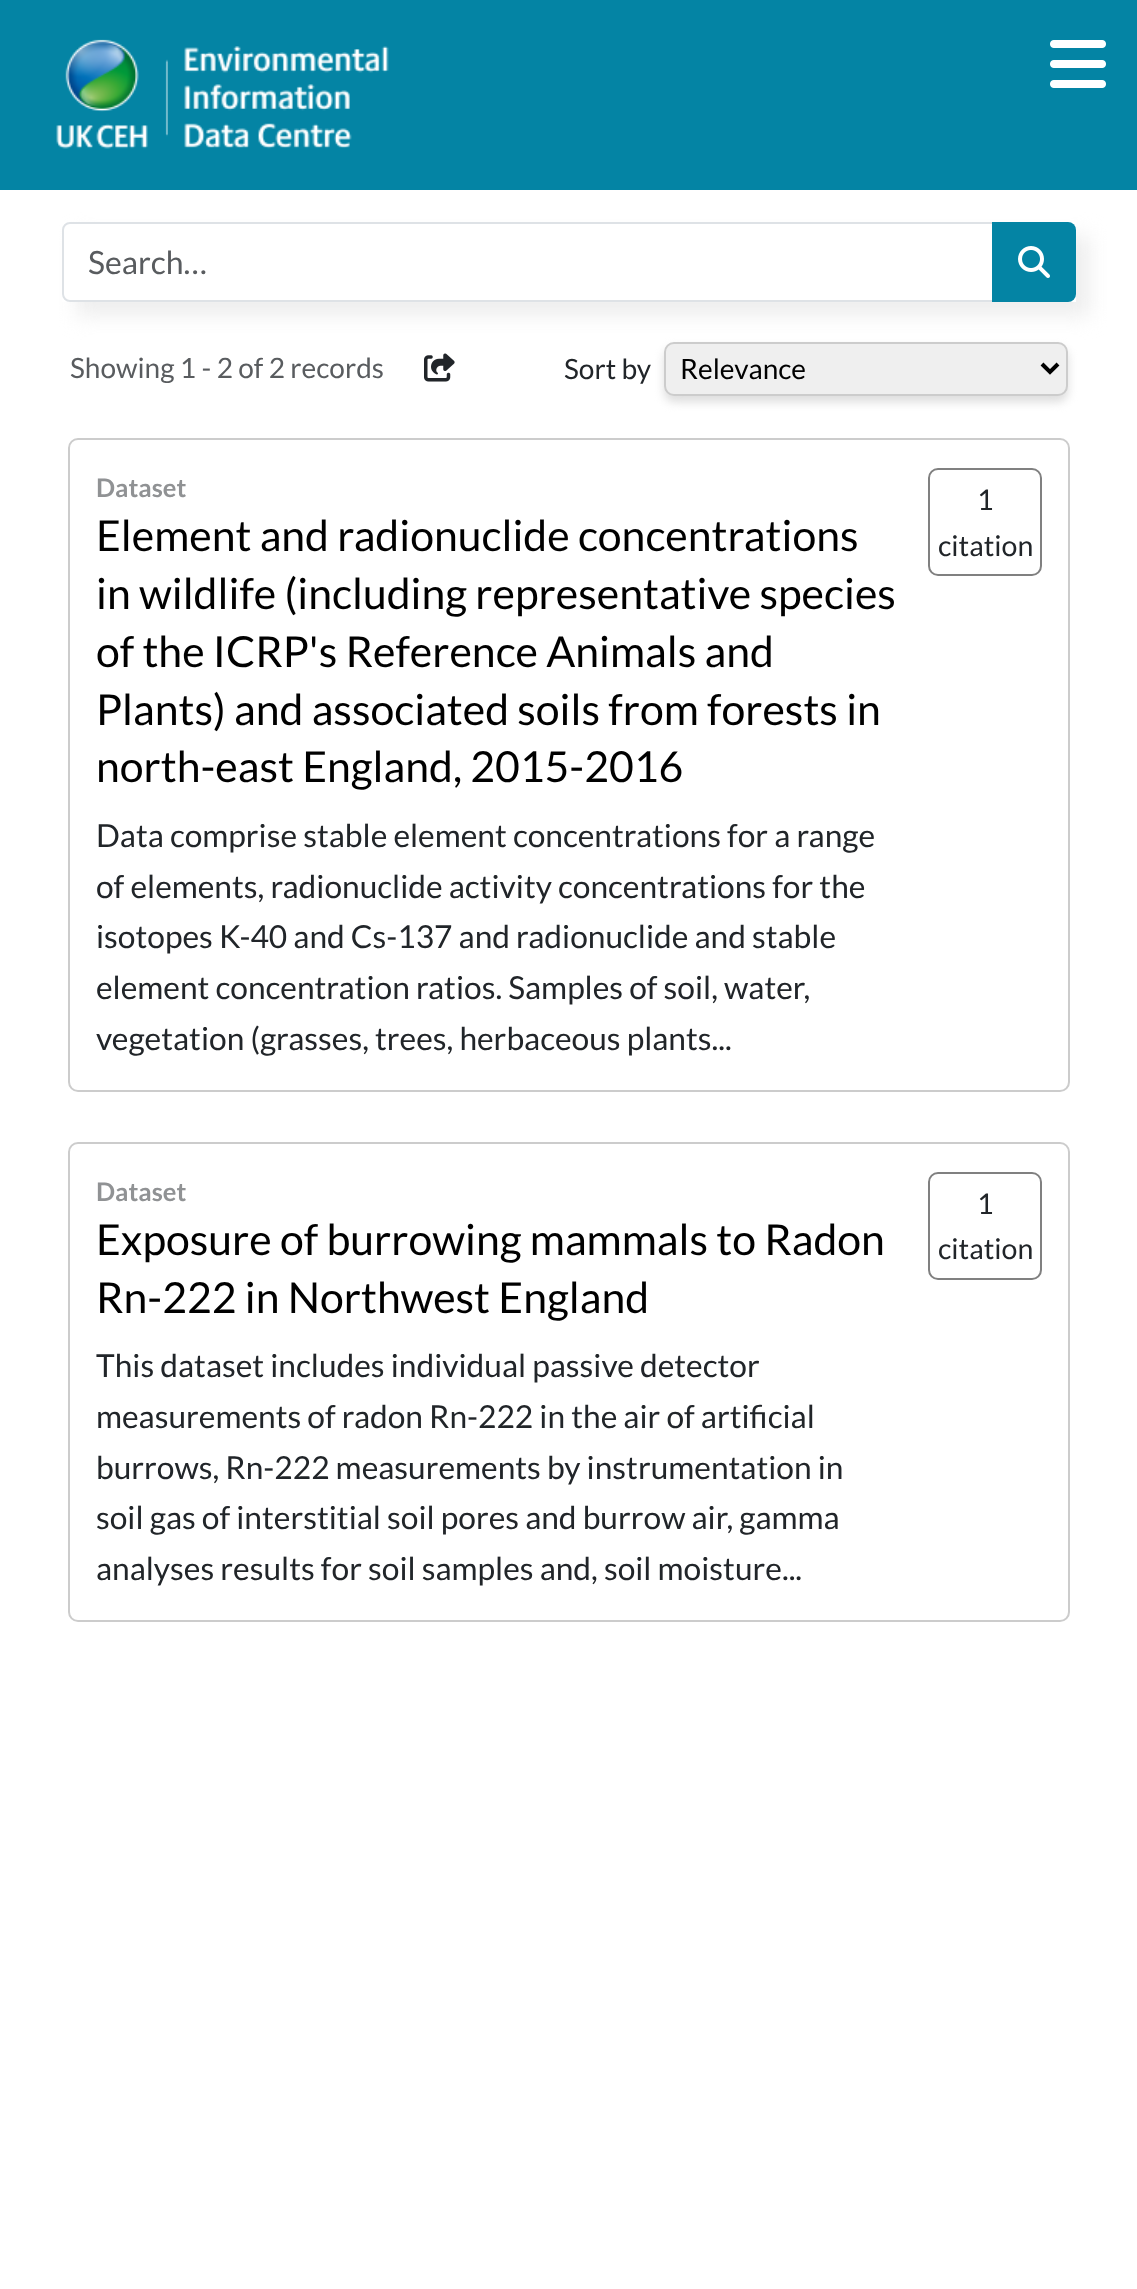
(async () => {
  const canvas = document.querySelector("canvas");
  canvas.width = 1137;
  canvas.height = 2289;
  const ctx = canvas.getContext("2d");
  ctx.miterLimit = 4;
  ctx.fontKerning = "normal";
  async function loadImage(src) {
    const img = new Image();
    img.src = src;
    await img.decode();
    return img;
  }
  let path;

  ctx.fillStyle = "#ffffff";
  ctx.fillRect(0, 0, 1137, 2289);
  ctx.fillStyle = "#0484a4";
  ctx.fillRect(0, 0, 1137, 190);
  ctx.drawImage(await loadImage("img/1.png"), 56, 39, 333, 110);
  ctx.drawImage(await loadImage("img/2.png"), 1050, 40, 56, 48);
  ctx.fillStyle = "#dddddd";
  ctx.filter = "blur(5px)";
  ctx.beginPath();
  ctx.roundRect(664, 348, 404, 54, 10);
  ctx.fill();
  ctx.filter = "none";
  ctx.fillStyle = "#efefef";
  ctx.beginPath();
  ctx.roundRect(665, 343, 402, 52, 9);
  ctx.fill();
  ctx.strokeStyle = "#cccccc";
  ctx.lineWidth = 2;
  ctx.stroke();
  ctx.save();
  ctx.beginPath();
  ctx.rect(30, 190, 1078, 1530);
  ctx.clip();
  path = new Path2D("M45 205H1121V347H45ZM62 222H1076V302H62Z");
  ctx.clip(path, "evenodd");
  ctx.fillStyle = "#eeeeee";
  ctx.filter = "blur(10px)";
  ctx.beginPath();
  ctx.rect(76, 236, 1014, 80);
  ctx.fill();
  ctx.filter = "none";
  ctx.restore();
  ctx.beginPath();
  ctx.roundRect(63, 223, 930, 78, [7, 0, 0, 7]);
  ctx.strokeStyle = "#dee2e6";
  ctx.stroke();
  ctx.fillStyle = "#0484a4";
  ctx.beginPath();
  ctx.roundRect(992, 222, 84, 80, [0, 8, 8, 0]);
  ctx.fill();
  ctx.drawImage(await loadImage("img/3.png"), 1018, 246, 32, 32);
  ctx.drawImage(await loadImage("img/4.png"), 424, 353, 31, 29);
  path = new Path2D("M1042 364L1050 372L1058 364");
  ctx.strokeStyle = "#000000";
  ctx.lineWidth = 4;
  ctx.stroke(path);
  ctx.beginPath();
  ctx.roundRect(69, 439, 1000, 652, 9);
  ctx.strokeStyle = "#cccccc";
  ctx.lineWidth = 2;
  ctx.stroke();
  ctx.beginPath();
  ctx.roundRect(929, 469, 112, 106, 9);
  ctx.strokeStyle = "#808080";
  ctx.stroke();
  ctx.beginPath();
  ctx.roundRect(69, 1143, 1000, 478, 9);
  ctx.strokeStyle = "#cccccc";
  ctx.stroke();
  ctx.beginPath();
  ctx.roundRect(929, 1173, 112, 106, 9);
  ctx.strokeStyle = "#808080";
  ctx.stroke();
  ctx.font = "32px Lato";
  ctx.fillStyle = "#595c5f";
  ctx.fillText("Search…", 88, 274);
  ctx.font = "28px Lato";
  ctx.fillText("Showing 1 - 2 of 2 records", 70, 378);
  ctx.fillStyle = "#212529";
  ctx.fillText("Sort by", 564, 379);
  ctx.fillStyle = "#000000";
  ctx.fillText("Relevance", 680, 379);
  ctx.font = "bold 25.5px Lato";
  ctx.fillStyle = "#909294";
  ctx.fillText("Dataset", 96, 497);
  ctx.font = "42.75px Lato";
  ctx.fillStyle = "#000000";
  for (const [text, x, y] of [
    ["Element and radionuclide concentrations", 96, 551],
    ["in wildlife (including representative species", 96, 609],
    ["of the ICRP's Reference Animals and", 96, 667],
    ["Plants) and associated soils from forests in", 96, 725],
    ["north-east England, 2015-2016", 96, 782],
  ]) {
    ctx.fillText(text, x, y);
  }
  ctx.font = "31.7px Lato";
  ctx.fillStyle = "#212529";
  for (const [text, x, y] of [
    ["Data comprise stable element concentrations for a range", 96, 847],
    ["of elements, radionuclide activity concentrations for the", 96, 898],
    ["isotopes K-40 and Cs-137 and radionuclide and stable", 96, 948],
    ["element concentration ratios. Samples of soil, water,", 96, 999],
    ["vegetation (grasses, trees, herbaceous plants...", 96, 1050],
  ]) {
    ctx.fillText(text, x, y);
  }
  ctx.font = "28.5px Lato";
  ctx.fillText("1", 977, 510);
  ctx.fillText("citation", 938, 556);
  ctx.font = "bold 25.5px Lato";
  ctx.fillStyle = "#909294";
  ctx.fillText("Dataset", 96, 1201);
  ctx.font = "42.75px Lato";
  ctx.fillStyle = "#000000";
  ctx.fillText("Exposure of burrowing mammals to Radon", 96, 1255);
  ctx.fillText("Rn-222 in Northwest England", 96, 1313);
  ctx.font = "31.7px Lato";
  ctx.fillStyle = "#212529";
  for (const [text, x, y] of [
    ["This dataset includes individual passive detector", 96, 1377],
    ["measurements of radon Rn-222 in the air of artificial", 96, 1428],
    ["burrows, Rn-222 measurements by instrumentation in", 96, 1479],
    ["soil gas of interstitial soil pores and burrow air, gamma", 96, 1529],
    ["analyses results for soil samples and, soil moisture...", 96, 1580],
  ]) {
    ctx.fillText(text, x, y);
  }
  ctx.font = "28.5px Lato";
  ctx.fillText("1", 977, 1214);
  ctx.fillText("citation", 938, 1259);
})();
